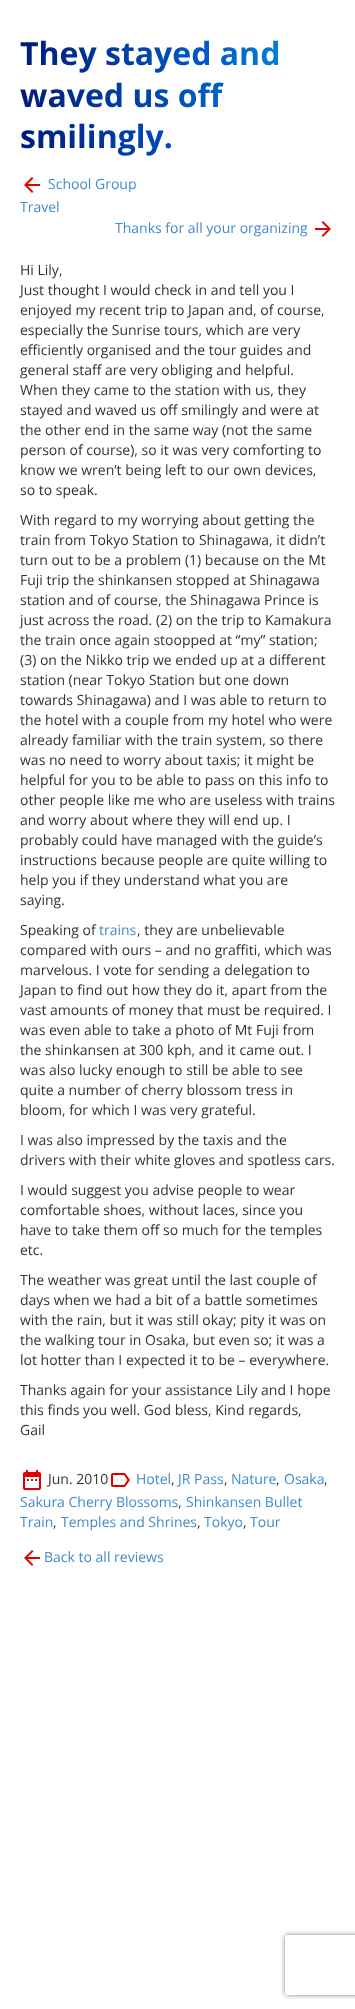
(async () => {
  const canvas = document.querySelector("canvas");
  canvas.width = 355;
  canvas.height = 2009;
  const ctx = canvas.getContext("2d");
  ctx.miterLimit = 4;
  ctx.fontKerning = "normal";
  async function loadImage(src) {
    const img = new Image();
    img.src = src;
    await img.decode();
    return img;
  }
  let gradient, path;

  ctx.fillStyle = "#ffffff";
  ctx.fillRect(0, 0, 355, 2009);
  ctx.drawImage(await loadImage("img/1.png"), 24, 177, 16, 16);
  ctx.drawImage(await loadImage("img/2.png"), 315, 221, 16, 16);
  ctx.drawImage(await loadImage("img/3.png"), 23, 1470, 18, 20);
  ctx.drawImage(await loadImage("img/4.png"), 111, 1473, 19, 14);
  ctx.drawImage(await loadImage("img/1.png"), 24, 1550, 16, 16);
  ctx.save();
  path = new Path2D("M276 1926H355V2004H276ZM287 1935H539C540 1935 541 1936 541 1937V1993C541 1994 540 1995 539 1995H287C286 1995 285 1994 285 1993V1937C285 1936 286 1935 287 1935Z");
  ctx.clip(path, "evenodd");
  ctx.fillStyle = "#808080";
  ctx.filter = "blur(2.5px)";
  ctx.beginPath();
  ctx.roundRect(285, 1935, 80, 60, 2);
  ctx.fill();
  ctx.filter = "none";
  ctx.restore();
  ctx.font = "bold 32px Open Sans";
  gradient = ctx.createLinearGradient(20, 94, 335, 94);
  gradient.addColorStop(0, "#001c7b");
  gradient.addColorStop(0.6, "#005ac8");
  gradient.addColorStop(1, "#009fdf");
  ctx.fillStyle = gradient;
  for (const [text, x, y] of [
    ["They stayed and", 20, 65],
    ["waved us off", 20, 107],
    ["smilingly.", 20, 148],
  ]) {
    ctx.fillText(text, x, y);
  }
  ctx.font = "14px Open Sans";
  ctx.fillStyle = "#428bca";
  for (const [text, x, y] of [
    ["School Group", 48, 189],
    ["Travel", 20, 212],
    ["Thanks for all your organizing", 115, 233],
  ]) {
    ctx.fillText(text, x, y);
  }
  ctx.fillStyle = "#333333";
  for (const [text, x, y] of [
    ["Hi Lily,", 20, 275],
    ["Just thought I would check in and tell you I", 20, 295],
    ["enjoyed my recent trip to Japan and, of course,", 20, 315],
    ["especially the Sunrise tours, which are very", 20, 335],
    ["efficiently organised and the tour guides and", 20, 355],
    ["general staff are very obliging and helpful.", 20, 375],
    ["When they came to the station with us, they", 20, 395],
    ["stayed and waved us off smilingly and were at", 20, 415],
    ["the other end in the same way (not the same", 20, 435],
    ["person of course), so it was very comforting to", 20, 455],
    ["know we wren’t being left to our own devices,", 20, 475],
    ["so to speak.", 20, 495],
    ["With regard to my worrying about getting the", 20, 525],
    ["train from Tokyo Station to Shinagawa, it didn’t", 20, 545],
    ["turn out to be a problem (1) because on the Mt", 20, 565],
    ["Fuji trip the shinkansen stopped at Shinagawa", 20, 585],
    ["station and of course, the Shinagawa Prince is", 20, 605],
    ["just across the road. (2) on the trip to Kamakura", 20, 625],
    ["the train once again stoopped at “my” station;", 20, 645],
    ["(3) on the Nikko trip we ended up at a different", 20, 665],
    ["station (near Tokyo Station but one down", 20, 685],
    ["towards Shinagawa) and I was able to return to", 20, 705],
    ["the hotel with a couple from my hotel who were", 20, 725],
    ["already familiar with the train system, so there", 20, 745],
    ["was no need to worry about taxis; it might be", 20, 765],
    ["helpful for you to be able to pass on this info to", 20, 785],
    ["other people like me who are useless with trains", 20, 805],
    ["and worry about where they will end up. I", 20, 825],
    ["probably could have managed with the guide’s", 20, 845],
    ["instructions because people are quite willing to", 20, 865],
    ["help you if they understand what you are", 20, 885],
    ["saying.", 20, 905],
    ["Speaking of", 20, 935],
  ]) {
    ctx.fillText(text, x, y);
  }
  ctx.fillStyle = "#428bca";
  ctx.fillText("trains", 99, 935);
  ctx.fillStyle = "#333333";
  for (const [text, x, y] of [
    [", they are unbelievable", 137, 935],
    ["compared with ours – and no graffiti, which was", 20, 955],
    ["marvelous. I vote for sending a delegation to", 20, 975],
    ["Japan to find out how they do it, apart from the", 20, 995],
    ["vast amounts of money that must be required. I", 20, 1015],
    ["was even able to take a photo of Mt Fuji from", 20, 1035],
    ["the shinkansen at 300 kph, and it came out. I", 20, 1055],
    ["was also lucky enough to still be able to see", 20, 1075],
    ["quite a number of cherry blossom tress in", 20, 1095],
    ["bloom, for which I was very grateful.", 20, 1115],
    ["I was also impressed by the taxis and the", 20, 1145],
    ["drivers with their white gloves and spotless cars.", 20, 1165],
    ["I would suggest you advise people to wear", 20, 1195],
    ["comfortable shoes, without laces, since you", 20, 1215],
    ["have to take them off so much for the temples", 20, 1235],
    ["etc.", 20, 1255],
    ["The weather was great until the last couple of", 20, 1285],
    ["days when we had a bit of a battle sometimes", 20, 1305],
    ["with the rain, but it was still okay; pity it was on", 20, 1325],
    ["the walking tour in Osaka, but even so; it was a", 20, 1345],
    ["lot hotter than I expected it to be – everywhere.", 20, 1365],
    ["Thanks again for your assistance Lily and I hope", 20, 1395],
    ["this finds you well. God bless, Kind regards,", 20, 1415],
    ["Gail", 20, 1435],
    ["Jun. 2010", 48, 1484],
  ]) {
    ctx.fillText(text, x, y);
  }
  ctx.fillStyle = "#428bca";
  ctx.fillText("Hotel", 136, 1484);
  ctx.fillStyle = "#333333";
  ctx.fillText(",", 171, 1484);
  ctx.fillStyle = "#428bca";
  ctx.fillText("JR Pass", 178, 1484);
  ctx.fillStyle = "#333333";
  ctx.fillText(",", 224, 1484);
  ctx.fillStyle = "#428bca";
  ctx.fillText("Nature", 231, 1484);
  ctx.fillStyle = "#333333";
  ctx.fillText(",", 276, 1484);
  ctx.fillStyle = "#428bca";
  ctx.fillText("Osaka", 284, 1484);
  ctx.fillStyle = "#333333";
  ctx.fillText(",", 324, 1484);
  ctx.fillStyle = "#428bca";
  ctx.fillText("Sakura Cherry Blossoms", 20, 1507);
  ctx.fillStyle = "#333333";
  ctx.fillText(",", 178, 1507);
  ctx.fillStyle = "#428bca";
  ctx.fillText("Shinkansen Bullet", 186, 1507);
  ctx.fillText("Train", 20, 1527);
  ctx.fillStyle = "#333333";
  ctx.fillText(",", 53, 1527);
  ctx.fillStyle = "#428bca";
  ctx.fillText("Temples and Shrines", 61, 1527);
  ctx.fillStyle = "#333333";
  ctx.fillText(",", 197, 1527);
  ctx.fillStyle = "#428bca";
  ctx.fillText("Tokyo", 204, 1527);
  ctx.fillStyle = "#333333";
  ctx.fillText(",", 243, 1527);
  ctx.fillStyle = "#428bca";
  ctx.fillText("Tour", 250, 1527);
  ctx.fillText("Back to all reviews", 44, 1562);
})();
